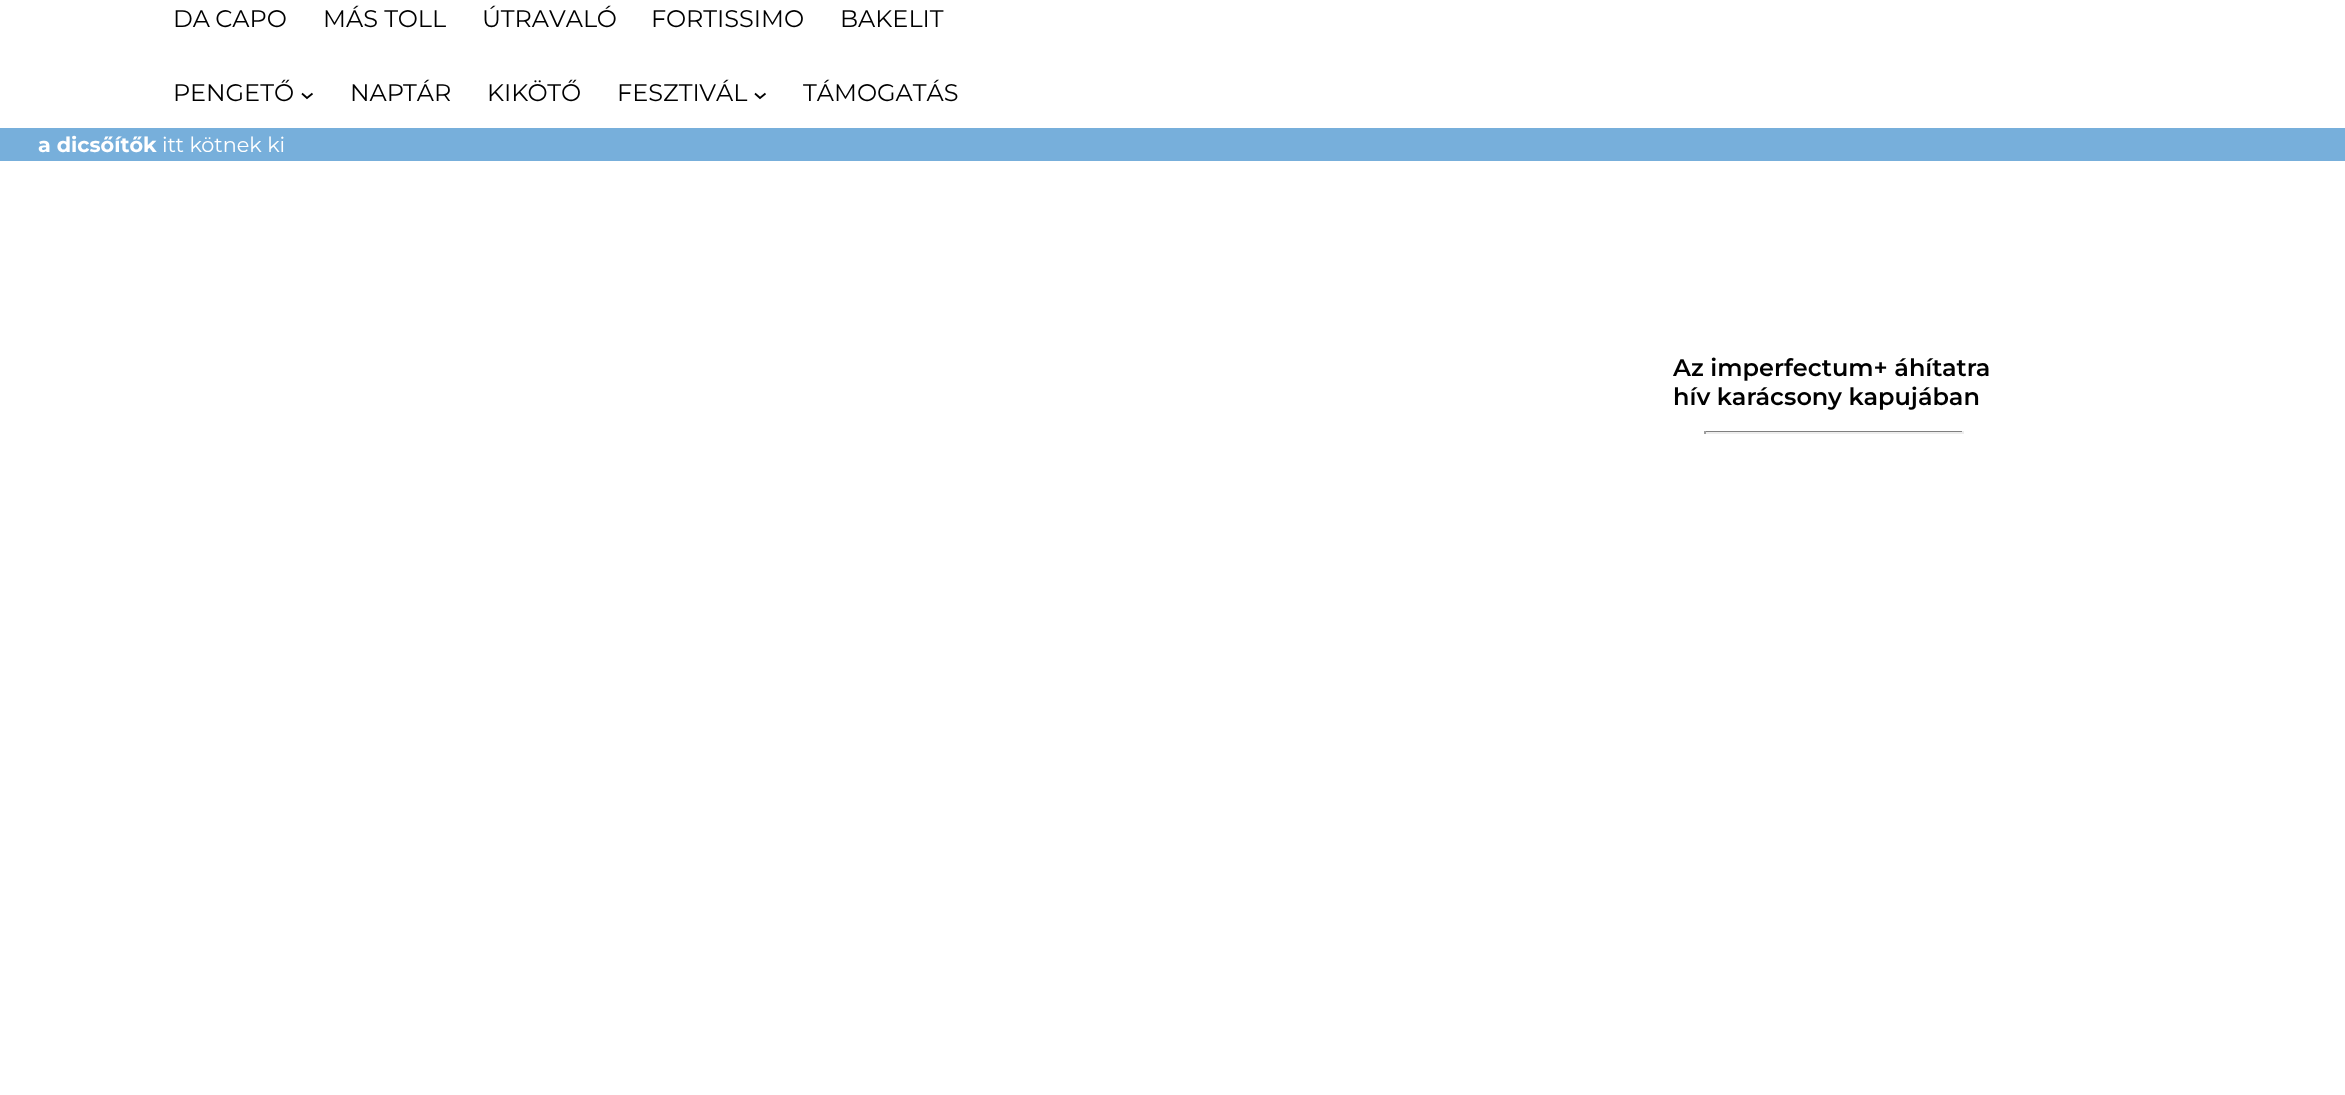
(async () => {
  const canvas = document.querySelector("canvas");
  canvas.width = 2345;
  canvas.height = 1095;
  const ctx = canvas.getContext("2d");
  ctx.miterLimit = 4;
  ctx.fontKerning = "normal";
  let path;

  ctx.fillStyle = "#ffffff";
  ctx.fillRect(0, 0, 2345, 1095);
  path = new Path2D("M302 93.5L307 98L312.5 93.5");
  ctx.strokeStyle = "#000000";
  ctx.lineWidth = 1.8;
  ctx.stroke(path);
  path = new Path2D("M755 93.5L760 98L765.5 93.5");
  ctx.stroke(path);
  for (const [x, y, w, h, color] of [
    [0, 128, 2345, 33, "#77afdb"],
    [1704, 431, 260, 1, "#808080"],
    [1962, 431, 2, 3, "#eeeeee"],
    [1704, 432, 260, 2, "#eeeeee"],
    [1704, 431, 2, 3, "#9f9f9f"],
  ]) {
    ctx.fillStyle = color;
    ctx.fillRect(x, y, w, h);
  }
  ctx.wordSpacing = "-1px";
  ctx.font = "24px Montserrat";
  ctx.fillStyle = "#000000";
  ctx.fillText("DA CAPO", 173, 27);
  ctx.wordSpacing = "0px";
  for (const [text, x, y] of [
    ["MÁS TOLL", 323, 27],
    ["ÚTRAVALÓ", 482, 27],
    ["FORTISSIMO", 651, 27],
    ["BAKELIT", 840, 27],
    ["PENGETŐ", 173, 101],
    ["NAPTÁR", 350, 101],
    ["KIKÖTŐ", 487, 101],
    ["FESZTIVÁL", 617, 101],
    ["TÁMOGATÁS", 803, 101],
  ]) {
    ctx.fillText(text, x, y);
  }
  ctx.font = "bold 20.75px Montserrat";
  ctx.fillStyle = "#ffffff";
  ctx.fillText("a dicsőítők", 38, 152);
  ctx.font = "20.75px Montserrat";
  ctx.fillText("itt kötnek ki", 162, 152);
  ctx.font = "600 24px Montserrat";
  ctx.fillStyle = "#000000";
  ctx.fillText("Az imperfectum+ áhítatra", 1673, 376);
  ctx.fillText("hív karácsony kapujában", 1673, 405);
})();
